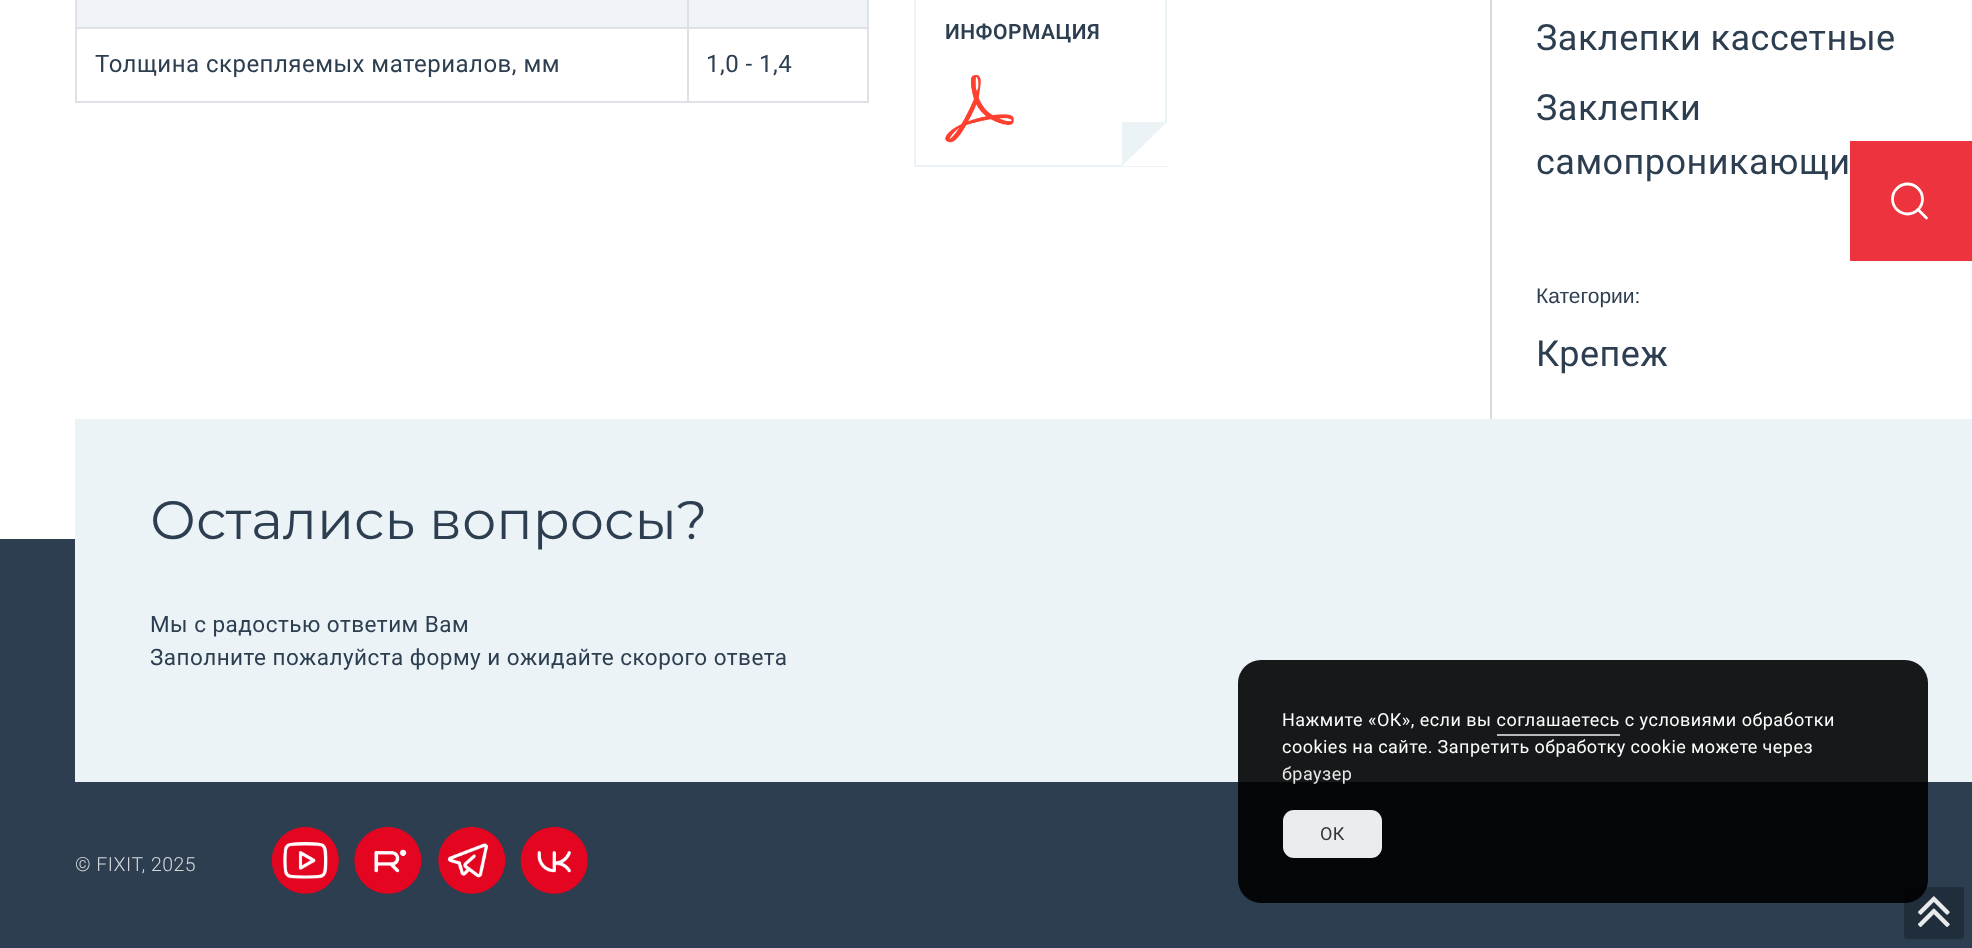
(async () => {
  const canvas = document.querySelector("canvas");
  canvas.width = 1972;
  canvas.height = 948;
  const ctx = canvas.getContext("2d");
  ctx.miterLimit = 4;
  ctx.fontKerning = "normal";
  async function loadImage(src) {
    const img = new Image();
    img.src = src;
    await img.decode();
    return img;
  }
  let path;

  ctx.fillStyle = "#ffffff";
  ctx.fillRect(0, 0, 1972, 948);
  ctx.fillStyle = "#d9d9d9";
  ctx.fillRect(1490, 0, 2, 419);
  ctx.drawImage(await loadImage("img/1.png"), 945, 75, 69, 68);
  ctx.strokeStyle = "#ebf3f7";
  ctx.lineWidth = 2;
  ctx.strokeRect(915, -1, 251, 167);
  ctx.fillStyle = "#ffffff";
  path = new Path2D("M1167 166H1122L1167 122Z");
  ctx.fill(path);
  ctx.fillStyle = "#ebf3f7";
  path = new Path2D("M1122 166V122H1167Z");
  ctx.fill(path);
  for (const [x, y, w, h, color] of [
    [77, 0, 790, 27, "#f0f3f8"],
    [687, 27, 182, 2, "#dee2e6"],
    [867, 0, 2, 102, "#dee2e6"],
    [687, 101, 182, 2, "#dee2e6"],
    [687, 27, 2, 75, "#dee2e6"],
    [75, 27, 614, 2, "#dee2e6"],
    [687, 0, 2, 29, "#dee2e6"],
    [75, 101, 614, 2, "#dee2e6"],
    [75, 0, 2, 102, "#dee2e6"],
    [1850, 141, 122, 120, "#ed333d"],
  ]) {
    ctx.fillStyle = color;
    ctx.fillRect(x, y, w, h);
  }
  ctx.beginPath();
  ctx.arc(1907.5, 199, 15, 0, Math.PI * 2);
  ctx.strokeStyle = "#ffffff";
  ctx.lineWidth = 2.8;
  ctx.stroke();
  path = new Path2D("M1926.5 218L1918 209.5");
  ctx.lineCap = "round";
  ctx.lineJoin = "round";
  ctx.stroke(path);
  for (const [x, y, w, h, color] of [
    [0, 539, 75, 243, "#2c3e50"],
    [75, 419, 1897, 363, "#ebf3f7"],
    [0, 782, 1972, 166, "#2c3e50"],
  ]) {
    ctx.fillStyle = color;
    ctx.fillRect(x, y, w, h);
  }
  ctx.drawImage(await loadImage("img/2.png"), 271, 826, 68, 68);
  ctx.drawImage(await loadImage("img/3.png"), 354, 826, 68, 68);
  ctx.drawImage(await loadImage("img/4.png"), 438, 826, 68, 68);
  ctx.drawImage(await loadImage("img/5.png"), 520, 826, 68, 68);
  ctx.fillStyle = "#202d3a";
  ctx.beginPath();
  ctx.roundRect(1904, 887, 60, 52, 3);
  ctx.fill();
  ctx.drawImage(await loadImage("img/6.png"), 1918, 896, 32, 31);
  ctx.fillStyle = "rgba(0, 0, 0, 0.9)";
  ctx.beginPath();
  ctx.roundRect(1238, 660, 690, 243, 23);
  ctx.fill();
  ctx.fillStyle = "#b8b9b9";
  ctx.fillRect(1497, 734, 123, 2);
  ctx.fillStyle = "#eaecee";
  ctx.beginPath();
  ctx.roundRect(1283, 810, 99, 48, 11);
  ctx.fill();
  ctx.letterSpacing = "0.48px";
  ctx.font = "600 21px Roboto";
  ctx.fillStyle = "#2c3e50";
  ctx.fillText("ИНФОРМАЦИЯ", 945, 39);
  ctx.font = "24px Roboto";
  ctx.fillText("Толщина скрепляемых материалов, мм", 95, 72);
  ctx.fillText("1,0 - 1,4", 706, 72);
  ctx.font = "36px Roboto";
  for (const [text, x, y] of [
    ["Заклепки кассетные", 1536, 50],
    ["Заклепки", 1536, 120],
    ["самопроникающи", 1536, 174],
  ]) {
    ctx.fillText(text, x, y);
  }
  ctx.letterSpacing = "0px";
  ctx.font = "21px Liberation Sans";
  ctx.fillText("Категории:", 1536, 303);
  ctx.letterSpacing = "0.48px";
  ctx.font = "36px Roboto";
  ctx.fillText("Крепеж", 1536, 366);
  ctx.letterSpacing = "0px";
  ctx.font = "54px Montserrat";
  ctx.fillText("Остались вопросы?", 150, 539);
  ctx.letterSpacing = "0.48px";
  ctx.font = "22.5px Roboto";
  ctx.fillText("Мы с радостью ответим Вам", 150, 632);
  ctx.fillText("Заполните пожалуйста форму и ожидайте скорого ответа", 150, 665);
  ctx.font = "300 19.5px Roboto";
  ctx.fillStyle = "#d5d8dc";
  ctx.fillText("© FIXIT, 2025", 75, 871);
  ctx.font = "18px Roboto";
  ctx.fillStyle = "#fdfefe";
  ctx.fillText("Нажмите «ОК», если вы соглашаетесь с условиями обработки", 1282, 726);
  ctx.wordSpacing = "-0.25px";
  ctx.fillText("cookies на сайте. Запретить обработку cookie можете через", 1282, 753);
  ctx.wordSpacing = "0px";
  ctx.fillStyle = "#e8e8e8";
  ctx.fillText("браузер", 1282, 780);
  ctx.fillStyle = "#323436";
  ctx.fillText("ОК", 1320, 840);
})();
